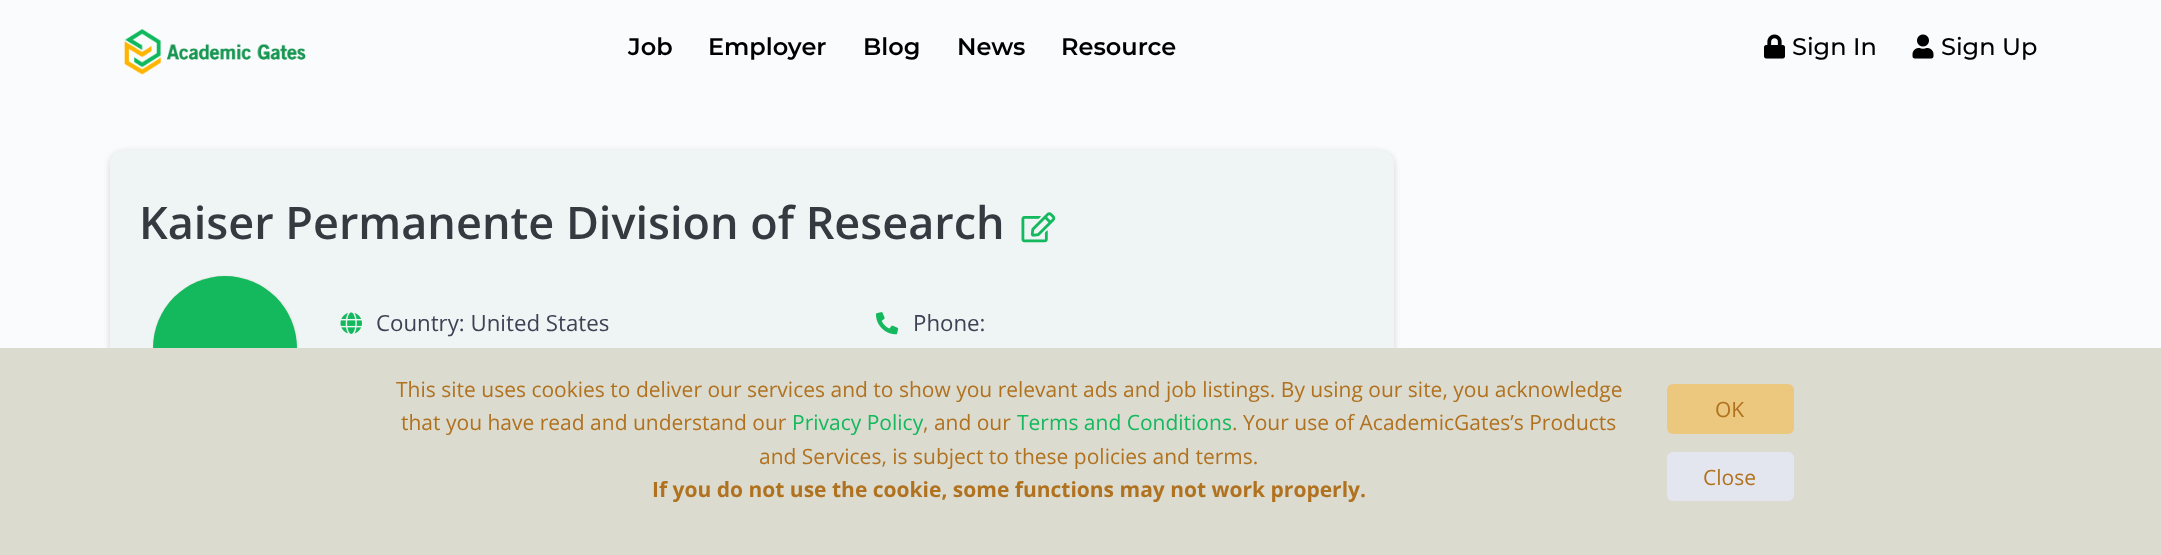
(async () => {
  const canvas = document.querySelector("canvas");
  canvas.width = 2161;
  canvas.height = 555;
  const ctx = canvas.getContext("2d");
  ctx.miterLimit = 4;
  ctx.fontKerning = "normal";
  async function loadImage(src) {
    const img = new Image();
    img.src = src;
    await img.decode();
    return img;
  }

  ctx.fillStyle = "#fafbfc";
  ctx.fillRect(0, 0, 2161, 555);
  ctx.drawImage(await loadImage("img/1.png"), 124, 29, 182, 46);
  ctx.drawImage(await loadImage("img/2.png"), 1764, 34, 21, 25);
  ctx.drawImage(await loadImage("img/3.png"), 1912, 34, 22, 25);
  ctx.fillStyle = "rgba(0, 0, 0, 0.16)";
  ctx.filter = "blur(3px)";
  ctx.beginPath();
  ctx.roundRect(110, 152, 1284, 324, 14);
  ctx.fill();
  ctx.filter = "none";
  ctx.fillStyle = "#eff5f5";
  ctx.beginPath();
  ctx.roundRect(110, 150, 1284, 324, 14);
  ctx.fill();
  ctx.drawImage(await loadImage("img/4.png"), 1021, 212, 35, 31);
  ctx.beginPath();
  ctx.arc(225.5, 348.5, 72.5, 0, Math.PI * 2);
  ctx.strokeStyle = "#ededed";
  ctx.lineWidth = 2;
  ctx.stroke();
  ctx.fillStyle = "#14b85d";
  ctx.beginPath();
  ctx.arc(225, 348, 72, 0, Math.PI * 2);
  ctx.fill();
  ctx.drawImage(await loadImage("img/5.png"), 340, 312, 22, 22);
  ctx.drawImage(await loadImage("img/6.png"), 876, 312, 23, 23);
  ctx.fillStyle = "#dbdbd0";
  ctx.fillRect(0, 348, 2161, 207);
  ctx.fillStyle = "#ecc77e";
  ctx.beginPath();
  ctx.roundRect(1667, 384, 127, 50, 6);
  ctx.fill();
  ctx.fillStyle = "#e4e6ef";
  ctx.beginPath();
  ctx.roundRect(1667, 452, 127, 49, 6);
  ctx.fill();
  ctx.font = "600 24px Montserrat";
  ctx.fillStyle = "#000000";
  for (const [text, x, y] of [
    ["Job", 628, 55],
    ["Employer", 708, 55],
    ["Blog", 863, 55],
    ["News", 957, 55],
    ["Resource", 1061, 55],
  ]) {
    ctx.fillText(text, x, y);
  }
  ctx.font = "500 24px Montserrat";
  ctx.fillText("Sign In", 1792, 55);
  ctx.fillText("Sign Up", 1941, 55);
  ctx.font = "600 45px Open Sans";
  ctx.fillStyle = "#343a40";
  ctx.fillText("Kaiser Permanente Division of Research", 139, 239);
  ctx.font = "22.25px Open Sans";
  ctx.fillStyle = "#3f4254";
  ctx.fillText("Country: United States", 376, 331);
  ctx.fillText("Phone:", 913, 331);
  ctx.font = "21px Open Sans";
  ctx.fillStyle = "#b1721f";
  ctx.fillText("This site uses cookies to deliver our services and to show you relevant ads and job listings. By using our site, you acknowledge", 396, 397);
  ctx.fillText("that you have read and understand our", 401, 430);
  ctx.fillStyle = "#14b85d";
  ctx.fillText("Privacy Policy", 792, 430);
  ctx.fillStyle = "#b1721f";
  ctx.fillText(", and our", 923, 430);
  ctx.fillStyle = "#14b85d";
  ctx.fillText("Terms and Conditions", 1017, 430);
  ctx.fillStyle = "#b1721f";
  ctx.fillText(". Your use of AcademicGates’s Products", 1232, 430);
  ctx.fillText("and Services, is subject to these policies and terms.", 759, 464);
  ctx.font = "bold 21px Open Sans";
  ctx.fillText("If you do not use the cookie, some functions may not work properly.", 652, 497);
  ctx.font = "21px Open Sans";
  ctx.fillText("OK", 1715, 417);
  ctx.fillText("Close", 1703, 485);
})();
